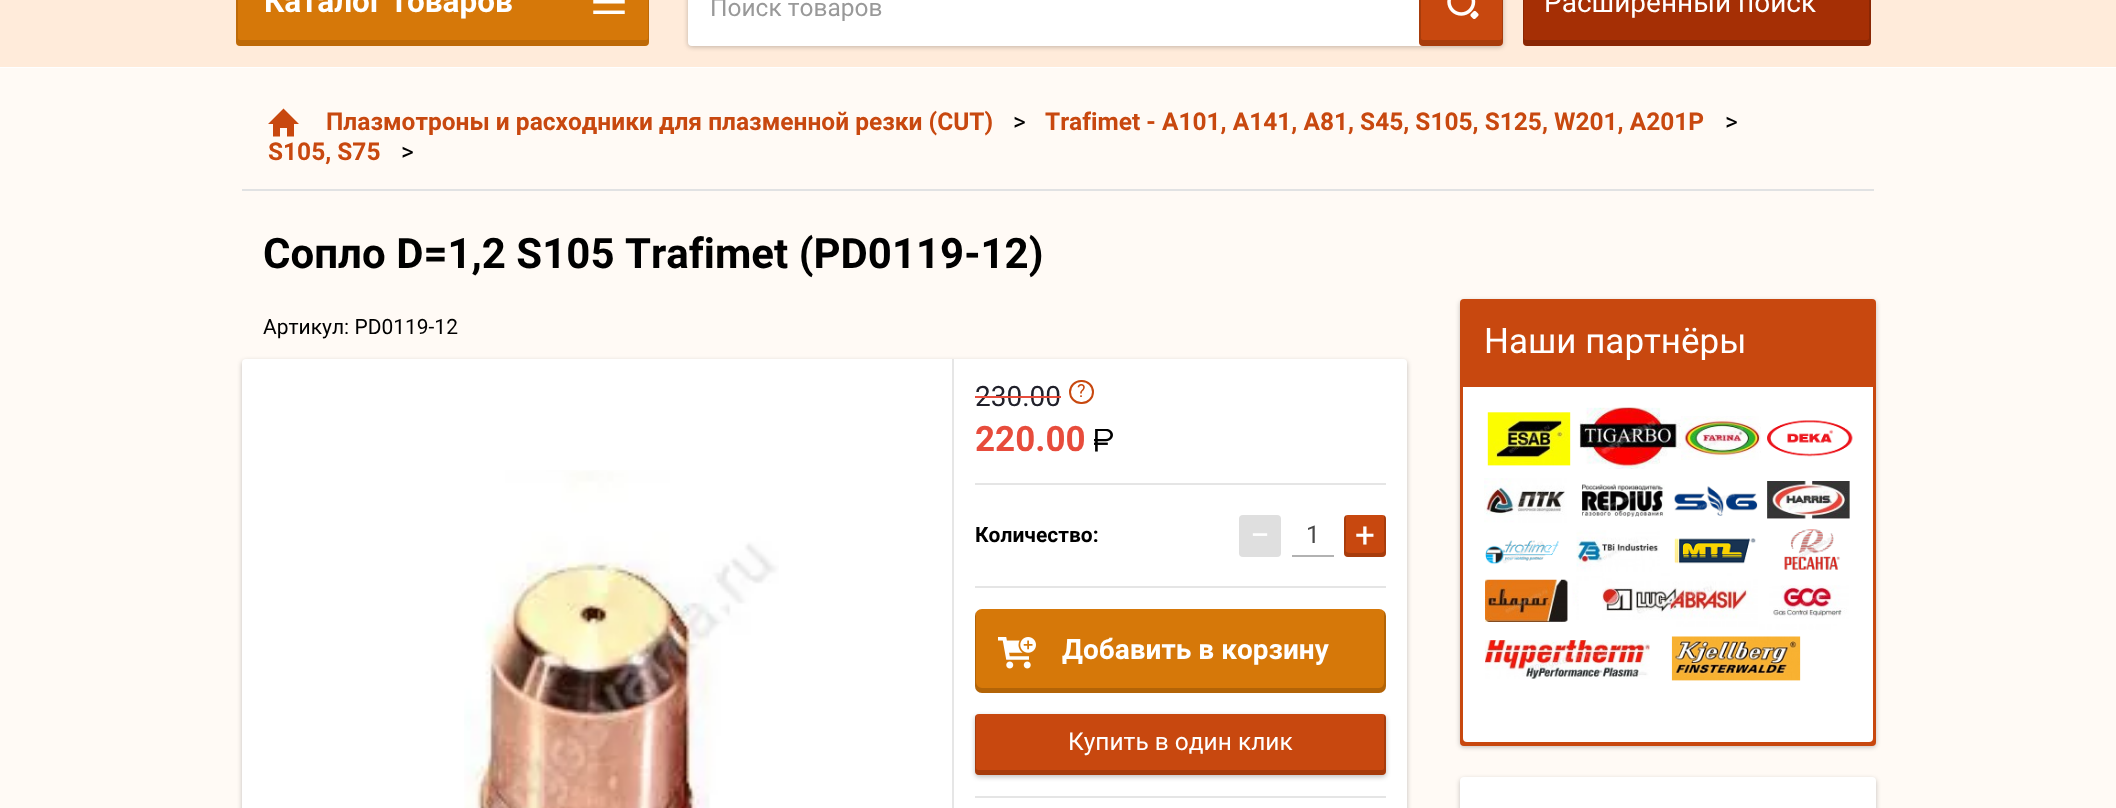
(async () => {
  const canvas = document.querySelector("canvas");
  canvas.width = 2116;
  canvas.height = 808;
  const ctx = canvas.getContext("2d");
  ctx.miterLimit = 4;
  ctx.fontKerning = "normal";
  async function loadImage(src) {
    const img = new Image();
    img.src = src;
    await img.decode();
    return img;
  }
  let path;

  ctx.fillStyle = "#fffaf5";
  ctx.fillRect(0, 0, 2116, 808);
  ctx.fillStyle = "#ffffff";
  path = new Path2D("M0 66V68H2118V-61V66Z");
  ctx.fill(path);
  ctx.fillStyle = "#ffebda";
  ctx.fillRect(0, 0, 2116, 67);
  ctx.fillStyle = "rgba(0, 0, 0, 0.24)";
  ctx.filter = "blur(2.5px)";
  ctx.beginPath();
  ctx.roundRect(688, -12, 815, 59, 4);
  ctx.fill();
  ctx.filter = "none";
  ctx.fillStyle = "#ffffff";
  ctx.beginPath();
  ctx.roundRect(688, -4, 815, 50, 4);
  ctx.fill();
  ctx.fillStyle = "#c8480f";
  ctx.beginPath();
  ctx.roundRect(1419, -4, 84, 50, 4);
  ctx.fill();
  ctx.fillStyle = "rgba(0, 0, 0, 0.16)";
  path = new Path2D("M1421-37C1420-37 1419-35 1419-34V42C1419 44 1421 46 1423 46H1499C1501 46 1503 44 1503 42V-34C1503-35 1503-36 1502-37V38C1502 39 1501 40 1500 40H1423C1422 40 1421 39 1421 38Z");
  ctx.fill(path);
  ctx.drawImage(await loadImage("img/1.png"), 1447, 0, 32, 19);
  ctx.fillStyle = "#a52f05";
  ctx.beginPath();
  ctx.roundRect(1523, -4, 348, 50, 4);
  ctx.fill();
  ctx.fillStyle = "rgba(0, 0, 0, 0.16)";
  path = new Path2D("M1524-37C1523-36 1523-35 1523-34V42C1523 44 1525 46 1527 46H1867C1869 46 1871 44 1871 42V-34C1871-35 1870-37 1869-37V38C1869 39 1868 40 1867 40H1526C1525 40 1524 39 1524 38Z");
  ctx.fill(path);
  ctx.fillStyle = "#e1e2e3";
  ctx.fillRect(242, 189, 1632, 2);
  ctx.fillStyle = "#c8480f";
  path = new Path2D("M294 124V136.5H287V128H280V136.5H273V124H268L283.5 108.5L299 124Z");
  ctx.fill(path, "evenodd");
  ctx.fillStyle = "rgba(0, 0, 0, 0.24)";
  ctx.filter = "blur(2.5px)";
  ctx.beginPath();
  ctx.roundRect(242, 361, 1165, 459, 4);
  ctx.fill();
  ctx.filter = "none";
  ctx.fillStyle = "#ffffff";
  ctx.beginPath();
  ctx.roundRect(242, 359, 1165, 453, 4);
  ctx.fill();
  ctx.drawImage(await loadImage("img/2.png"), 464, 470, 315, 338);
  ctx.fillStyle = "#e6e6e6";
  path = new Path2D("M952 359V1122H1405H954V359Z");
  ctx.fill(path);
  ctx.beginPath();
  ctx.roundRect(1070, 381, 23, 22, 11);
  ctx.strokeStyle = "#c8480f";
  ctx.lineWidth = 2;
  ctx.stroke();
  ctx.drawImage(await loadImage("img/3.png"), 1094, 429, 19, 23);
  ctx.fillStyle = "#e5e5e5";
  ctx.fillRect(975, 483, 411, 2);
  ctx.fillRect(975, 586, 411, 2);
  ctx.fillStyle = "#dfdfdf";
  ctx.beginPath();
  ctx.roundRect(1239, 515, 42, 42, 4);
  ctx.fill();
  ctx.fillStyle = "#b2b2b2";
  ctx.fillRect(1292, 555, 42, 2);
  ctx.fillStyle = "#c8480f";
  ctx.beginPath();
  ctx.roundRect(1344, 515, 42, 42, 4);
  ctx.fill();
  ctx.fillStyle = "rgba(0, 0, 0, 0.16)";
  path = new Path2D("M1346 515C1345 516 1344 517 1344 519V553C1344 555 1346 557 1348 557H1382C1384 557 1386 555 1386 553V519C1386 517 1385 516 1384 515V539C1384 552 1387 553 1376 553H1354C1343 553 1346 552 1346 539Z");
  ctx.fill(path);
  ctx.fillStyle = "#d67809";
  ctx.beginPath();
  ctx.roundRect(975, 609, 411, 84, 7);
  ctx.fill();
  ctx.fillStyle = "rgba(0, 0, 0, 0.16)";
  path = new Path2D("M976 612C975 613 975 615 975 616V686C975 690 978 693 982 693H1379C1383 693 1386 690 1386 686V616C1386 614 1385 612 1384 611V682C1384 685 1382 688 1379 688H982C979 688 976 685 976 682Z");
  ctx.fill(path);
  ctx.drawImage(await loadImage("img/4.png"), 998, 637, 38, 32);
  ctx.fillStyle = "rgba(0, 0, 0, 0.24)";
  ctx.filter = "blur(2.5px)";
  ctx.beginPath();
  ctx.roundRect(975, 716, 411, 61, 4);
  ctx.fill();
  ctx.filter = "none";
  ctx.fillStyle = "#c8480f";
  ctx.beginPath();
  ctx.roundRect(975, 714, 411, 61, 4);
  ctx.fill();
  ctx.fillStyle = "rgba(0, 0, 0, 0.16)";
  path = new Path2D("M976 715C975 716 975 717 975 718V771C975 773 977 775 979 775H1382C1384 775 1386 773 1386 771V718C1386 717 1385 715 1384 715V768C1384 769 1383 770 1382 770H978C977 770 976 769 976 768Z");
  ctx.fill(path);
  ctx.fillStyle = "#e5e5e5";
  ctx.fillRect(975, 796, 411, 2);
  ctx.fillStyle = "#d67809";
  ctx.beginPath();
  ctx.roundRect(236, -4, 413, 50, 4);
  ctx.fill();
  ctx.fillStyle = "rgba(0, 0, 0, 0.11)";
  path = new Path2D("M238-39C237-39 236-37 236-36V42C236 44 238 46 240 46H645C647 46 649 44 649 42V-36C649-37 649-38 648-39V38C648 39 647 40 646 40H240C239 40 238 39 238 38Z");
  ctx.fill(path);
  ctx.drawImage(await loadImage("img/5.png"), 593, 0, 32, 14);
  ctx.fillStyle = "rgba(0, 0, 0, 0.24)";
  ctx.filter = "blur(2.5px)";
  ctx.beginPath();
  ctx.roundRect(1460, 301, 416, 446, 4);
  ctx.fill();
  ctx.filter = "none";
  ctx.fillStyle = "#c8480f";
  ctx.beginPath();
  ctx.roundRect(1460, 299, 416, 447, 4);
  ctx.fill();
  ctx.fillStyle = "#ffffff";
  ctx.beginPath();
  ctx.roundRect(1463, 387, 410, 355, [0, 0, 4, 4]);
  ctx.fill();
  ctx.drawImage(await loadImage("img/6.png"), 1484, 407, 369, 274);
  ctx.fillStyle = "rgba(0, 0, 0, 0.24)";
  ctx.filter = "blur(2.5px)";
  ctx.beginPath();
  ctx.roundRect(1460, 779, 416, 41, 4);
  ctx.fill();
  ctx.filter = "none";
  ctx.fillStyle = "#ffffff";
  ctx.beginPath();
  ctx.roundRect(1460, 777, 416, 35, 4);
  ctx.fill();
  ctx.font = "24.5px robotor";
  ctx.fillStyle = "#999999";
  ctx.fillText("Поиск товаров", 710, 16);
  ctx.font = "28px robotor";
  ctx.fillStyle = "#ffffff";
  ctx.fillText("Расширенный поиск", 1544, 12);
  ctx.font = "bold 24.5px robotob";
  ctx.fillStyle = "#c8480f";
  ctx.fillText("Плазмотроны и расходники для плазменной резки (CUT)", 326, 130);
  ctx.font = "24.5px robotor";
  ctx.fillStyle = "#000000";
  ctx.fillText(">", 1013, 130);
  ctx.font = "bold 24.5px robotob";
  ctx.fillStyle = "#c8480f";
  ctx.fillText("Trafimet - А101, А141, А81, S45, S105, S125, W201, A201P", 1045, 130);
  ctx.font = "24.5px robotor";
  ctx.fillStyle = "#000000";
  ctx.fillText(">", 1725, 130);
  ctx.font = "bold 24.5px robotob";
  ctx.fillStyle = "#c8480f";
  ctx.fillText("S105, S75", 268, 160);
  ctx.font = "24.5px robotor";
  ctx.fillStyle = "#000000";
  ctx.fillText(">", 401, 160);
  ctx.font = "bold 42px robotob";
  ctx.fillText("Сопло D=1,2 S105 Trafimet (PD0119-12)", 263, 268);
  ctx.font = "21px robotor";
  ctx.fillText("Артикул: PD0119-12", 263, 334);
  ctx.font = "28px robotor";
  ctx.fillStyle = "#20202a";
  ctx.fillText("230.00", 975, 406);
  ctx.fillStyle = "#e74c3c";
  ctx.fillRect(975, 396, 86, 2);
  ctx.font = "18px robotor";
  ctx.fillStyle = "#c8480f";
  ctx.fillText("?", 1077, 397);
  ctx.font = "bold 35px robotob";
  ctx.fillStyle = "#e74c3c";
  ctx.fillText("220.00", 975, 451);
  ctx.font = "bold 21px robotob";
  ctx.fillStyle = "#000000";
  ctx.fillText("Количество:", 975, 542);
  ctx.font = "35px robotor";
  ctx.fillStyle = "#ffffff";
  ctx.fillText("−", 1250, 547);
  ctx.font = "24.5px robotor";
  ctx.fillStyle = "#484848";
  ctx.fillText("1", 1306, 543);
  ctx.font = "35px robotor";
  ctx.fillStyle = "#ffffff";
  ctx.fillText("+", 1355, 547);
  ctx.font = "bold 28px robotob";
  ctx.fillText("Добавить в корзину", 1062, 659);
  ctx.font = "24.5px robotor";
  ctx.fillText("Купить в один клик", 1068, 750);
  ctx.font = "bold 31.5px robotob";
  ctx.fillText("Каталог товаров", 264, 12);
  ctx.font = "35px robotor";
  ctx.fillText("Наши партнёры", 1484, 353);
})();
